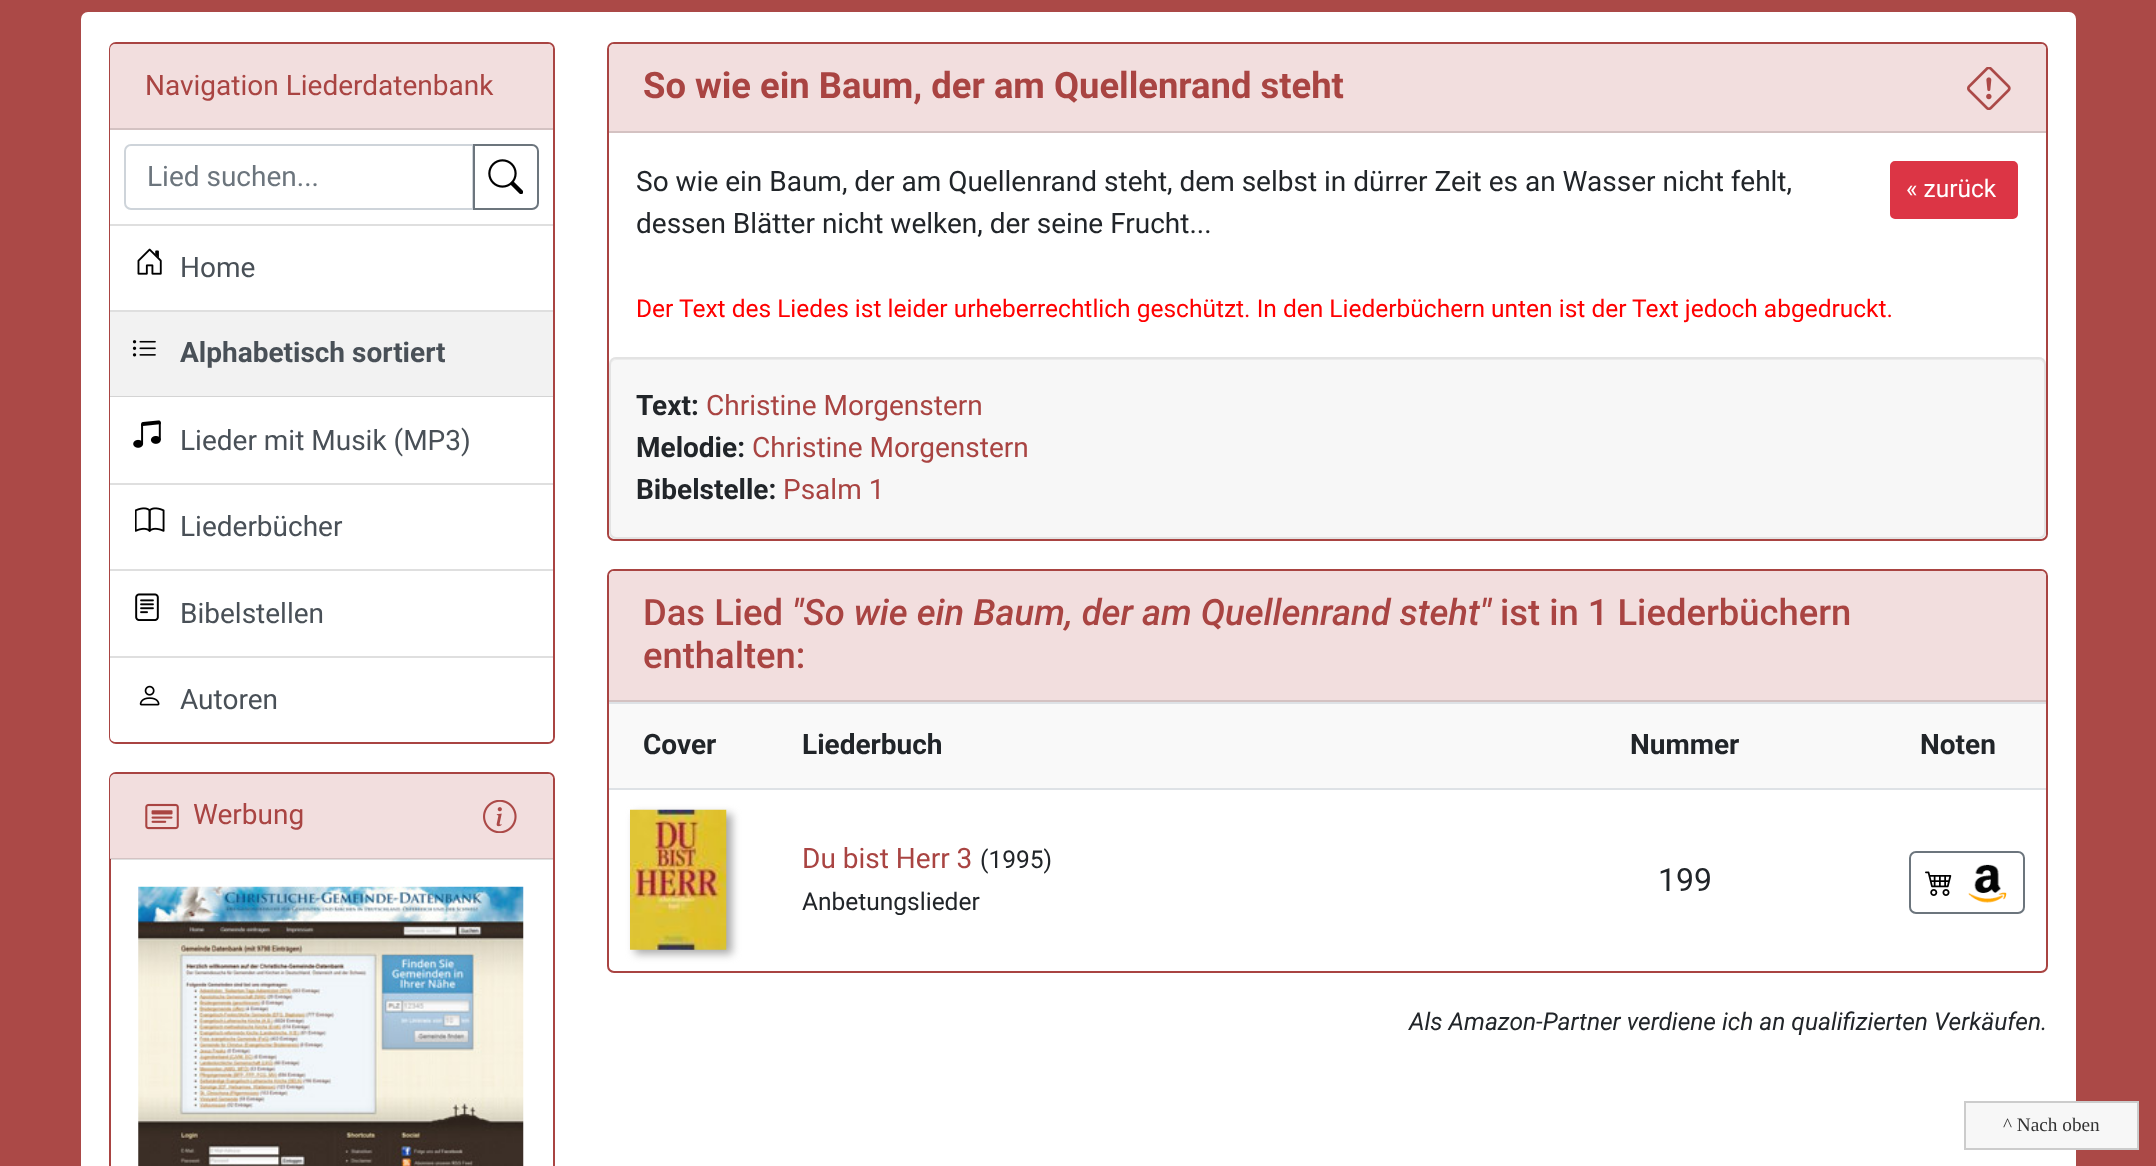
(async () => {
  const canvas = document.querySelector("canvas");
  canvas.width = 2156;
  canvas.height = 1166;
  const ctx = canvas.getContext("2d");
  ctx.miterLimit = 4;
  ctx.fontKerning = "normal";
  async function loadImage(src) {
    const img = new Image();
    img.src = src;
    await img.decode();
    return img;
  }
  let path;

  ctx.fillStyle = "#ab4947";
  ctx.fillRect(0, 0, 2156, 1166);
  ctx.fillStyle = "#ffffff";
  ctx.beginPath();
  ctx.roundRect(81, 12, 1995, 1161, 7);
  ctx.fill();
  ctx.beginPath();
  ctx.roundRect(110, 43, 444, 700, 6);
  ctx.strokeStyle = "#a94442";
  ctx.lineWidth = 2;
  ctx.stroke();
  ctx.fillStyle = "#f2dede";
  ctx.beginPath();
  ctx.roundRect(110, 44, 443, 86, [5, 5, 0, 0]);
  ctx.fill();
  for (const [x, y, w, h, color] of [
    [110, 128, 443, 2, "#d4c2c2"],
    [110, 130, 1, 94, "#ffffff"],
    [110, 224, 443, 2, "#dfdfdf"],
  ]) {
    ctx.fillStyle = color;
    ctx.fillRect(x, y, w, h);
  }
  ctx.beginPath();
  ctx.roundRect(125, 145, 348, 64, [6, 0, 0, 6]);
  ctx.strokeStyle = "#ced4da";
  ctx.stroke();
  ctx.beginPath();
  ctx.roundRect(474, 145, 64, 64, [0, 6, 6, 0]);
  ctx.strokeStyle = "#6c757d";
  ctx.stroke();
  ctx.drawImage(await loadImage("img/1.png"), 488, 159, 35, 35);
  ctx.fillStyle = "#ffffff";
  ctx.fillRect(110, 226, 1, 84);
  ctx.fillStyle = "#dfdfdf";
  ctx.fillRect(110, 310, 443, 2);
  ctx.drawImage(await loadImage("img/2.png"), 137, 248, 25, 27);
  ctx.fillStyle = "#f2f2f2";
  ctx.fillRect(110, 312, 443, 85);
  ctx.fillStyle = "rgba(0, 0, 0, 0.12)";
  ctx.fillRect(110, 396, 443, 1);
  ctx.drawImage(await loadImage("img/3.png"), 132, 340, 24, 17);
  ctx.fillStyle = "#ffffff";
  ctx.fillRect(110, 397, 1, 86);
  ctx.fillStyle = "#dfdfdf";
  ctx.fillRect(110, 483, 443, 2);
  ctx.drawImage(await loadImage("img/4.png"), 133, 420, 28, 28);
  ctx.fillStyle = "#ffffff";
  ctx.fillRect(110, 485, 1, 84);
  ctx.fillStyle = "#dfdfdf";
  ctx.fillRect(110, 569, 443, 2);
  ctx.drawImage(await loadImage("img/5.png"), 135, 507, 30, 25);
  ctx.fillStyle = "#ffffff";
  ctx.fillRect(110, 571, 1, 85);
  ctx.fillStyle = "#dfdfdf";
  ctx.fillRect(110, 656, 443, 2);
  ctx.drawImage(await loadImage("img/6.png"), 135, 593, 24, 28);
  ctx.fillStyle = "#ffffff";
  ctx.beginPath();
  ctx.roundRect(110, 658, 443, 84, [0, 0, 5, 5]);
  ctx.fill();
  ctx.drawImage(await loadImage("img/7.png"), 139, 685, 21, 21);
  ctx.beginPath();
  ctx.roundRect(110, 773, 444, 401, 6);
  ctx.strokeStyle = "#a94442";
  ctx.stroke();
  ctx.fillStyle = "#f2dede";
  ctx.beginPath();
  ctx.roundRect(110, 774, 443, 85, [5, 5, 0, 0]);
  ctx.fill();
  ctx.fillStyle = "rgba(0, 0, 0, 0.12)";
  ctx.fillRect(110, 858, 443, 2);
  ctx.drawImage(await loadImage("img/8.png"), 145, 803, 34, 27);
  ctx.drawImage(await loadImage("img/9.png"), 483, 800, 34, 33);
  ctx.drawImage(await loadImage("img/10.png"), 138, 886, 386, 280);
  ctx.beginPath();
  ctx.roundRect(608, 43, 1439, 497, 6);
  ctx.stroke();
  ctx.fillStyle = "#f2dede";
  ctx.beginPath();
  ctx.roundRect(609, 44, 1437, 89, [5, 5, 0, 0]);
  ctx.fill();
  ctx.fillStyle = "#d4c2c2";
  ctx.fillRect(609, 131, 1437, 2);
  ctx.drawImage(await loadImage("img/11.png"), 1967, 67, 44, 43);
  ctx.fillStyle = "#dc3545";
  ctx.beginPath();
  ctx.roundRect(1891, 162, 126, 56, 4);
  ctx.fill();
  ctx.strokeStyle = "#dc3545";
  ctx.stroke();
  ctx.fillStyle = "#f7f7f7";
  ctx.beginPath();
  ctx.roundRect(609, 357, 1437, 182, 7);
  ctx.fill();
  ctx.fillStyle = "#ebebeb";
  path = new Path2D("M616 360H2039C2042 360 2044 363 2044 366C2044 363 2043 359 2039 359H616C612 359 611 363 611 366C611 363 613 360 616 360Z");
  ctx.fill(path);
  ctx.beginPath();
  ctx.roundRect(610, 358, 1435, 180, 6);
  ctx.strokeStyle = "#e3e3e3";
  ctx.stroke();
  ctx.beginPath();
  ctx.roundRect(608, 570, 1439, 402, 6);
  ctx.strokeStyle = "#a94442";
  ctx.stroke();
  ctx.fillStyle = "#f2dede";
  ctx.beginPath();
  ctx.roundRect(609, 571, 1437, 131, [5, 5, 0, 0]);
  ctx.fill();
  for (const [x, y, w, h, color] of [
    [609, 700, 1437, 2, "#d4c2c2"],
    [609, 704, 1437, 84, "#f9f9f9"],
    [609, 702, 1437, 2, "#dee2e6"],
    [609, 788, 1437, 2, "#dee2e6"],
  ]) {
    ctx.fillStyle = color;
    ctx.fillRect(x, y, w, h);
  }
  ctx.beginPath();
  ctx.roundRect(1910, 852, 114, 61, 6);
  ctx.strokeStyle = "#6c757d";
  ctx.stroke();
  ctx.drawImage(await loadImage("img/12.png"), 1925, 871, 27, 25);
  ctx.drawImage(await loadImage("img/13.png"), 1968, 864, 39, 39);
  ctx.fillStyle = "#aaaaaa";
  ctx.filter = "blur(4.5px)";
  ctx.beginPath();
  ctx.rect(635, 814, 97, 140);
  ctx.fill();
  ctx.filter = "none";
  ctx.drawImage(await loadImage("img/14.png"), 630, 809, 97, 141);
  ctx.fillStyle = "#f7f7f7";
  ctx.beginPath();
  ctx.rect(1965, 1102, 173, 47);
  ctx.fill();
  ctx.strokeStyle = "#cccccc";
  ctx.stroke();
  ctx.font = "28px Roboto";
  ctx.fillStyle = "#a94442";
  ctx.fillText("Navigation Liederdatenbank", 145, 95);
  ctx.fillStyle = "#6c757d";
  ctx.fillText("Lied suchen...", 147, 186);
  ctx.fillStyle = "#495057";
  ctx.fillText("Home", 180, 277);
  ctx.font = "bold 28px Roboto";
  ctx.fillText("Alphabetisch sortiert", 180, 362);
  ctx.font = "28px Roboto";
  for (const [text, x, y] of [
    ["Lieder mit Musik (MP3)", 180, 450],
    ["Liederbücher", 180, 536],
    ["Bibelstellen", 180, 623],
    ["Autoren", 180, 709],
  ]) {
    ctx.fillText(text, x, y);
  }
  ctx.fillStyle = "#a94442";
  ctx.fillText("Werbung", 193, 824);
  ctx.font = "bold 36.4px Roboto";
  ctx.fillText("So wie ein Baum, der am Quellenrand steht", 643, 98);
  ctx.font = "28px Roboto";
  ctx.fillStyle = "#212529";
  ctx.fillText("So wie ein Baum, der am Quellenrand steht, dem selbst in dürrer Zeit es an Wasser nicht fehlt,", 636, 191);
  ctx.font = "24.5px Roboto";
  ctx.fillStyle = "#ffffff";
  ctx.fillText("« zurück", 1906, 197);
  ctx.font = "28px Roboto";
  ctx.fillStyle = "#212529";
  ctx.fillText("dessen Blätter nicht welken, der seine Frucht...", 636, 233);
  ctx.font = "24.5px Roboto";
  ctx.fillStyle = "#ff0000";
  ctx.fillText("Der Text des Liedes ist leider urheberrechtlich geschützt. In den Liederbüchern unten ist der Text jedoch abgedruckt.", 636, 317);
  ctx.font = "bold 28px Roboto";
  ctx.fillStyle = "#212529";
  ctx.fillText("Text:", 636, 415);
  ctx.font = "28px Roboto";
  ctx.fillStyle = "#a94442";
  ctx.fillText("Christine Morgenstern", 706, 415);
  ctx.font = "bold 28px Roboto";
  ctx.fillStyle = "#212529";
  ctx.fillText("Melodie:", 636, 457);
  ctx.font = "28px Roboto";
  ctx.fillStyle = "#a94442";
  ctx.fillText("Christine Morgenstern", 752, 457);
  ctx.font = "bold 28px Roboto";
  ctx.fillStyle = "#212529";
  ctx.fillText("Bibelstelle:", 636, 499);
  ctx.font = "28px Roboto";
  ctx.fillStyle = "#a94442";
  ctx.fillText("Psalm 1", 783, 499);
  ctx.font = "500 36.4px Roboto";
  ctx.fillText("Das Lied", 643, 625);
  ctx.font = "italic 500 36.4px Roboto";
  ctx.fillText("\"So wie ein Baum, der am Quellenrand steht\"", 792, 625);
  ctx.font = "500 36.4px Roboto";
  ctx.fillText("ist in 1 Liederbüchern", 1500, 625);
  ctx.fillText("enthalten:", 643, 668);
  ctx.font = "bold 28px Roboto";
  ctx.fillStyle = "#212529";
  for (const [text, x, y] of [
    ["Cover", 643, 754],
    ["Liederbuch", 802, 754],
    ["Nummer", 1630, 754],
    ["Noten", 1920, 754],
  ]) {
    ctx.fillText(text, x, y);
  }
  ctx.font = "28px Roboto";
  ctx.fillStyle = "#a94442";
  ctx.fillText("Du bist Herr 3", 802, 868);
  ctx.font = "24.5px Roboto";
  ctx.fillStyle = "#212529";
  ctx.fillText("(1995)", 980, 868);
  ctx.fillText("Anbetungslieder", 802, 910);
  ctx.font = "32px Roboto";
  ctx.fillText("199", 1658, 891);
  ctx.font = "italic 24.5px Roboto";
  ctx.fillText("Als Amazon-Partner verdiene ich an qualifizierten Verkäufen.", 1409, 1030);
  ctx.font = "19.25px Liberation Serif";
  ctx.fillStyle = "#333333";
  ctx.fillText("^ Nach oben", 2003, 1131);
})();
